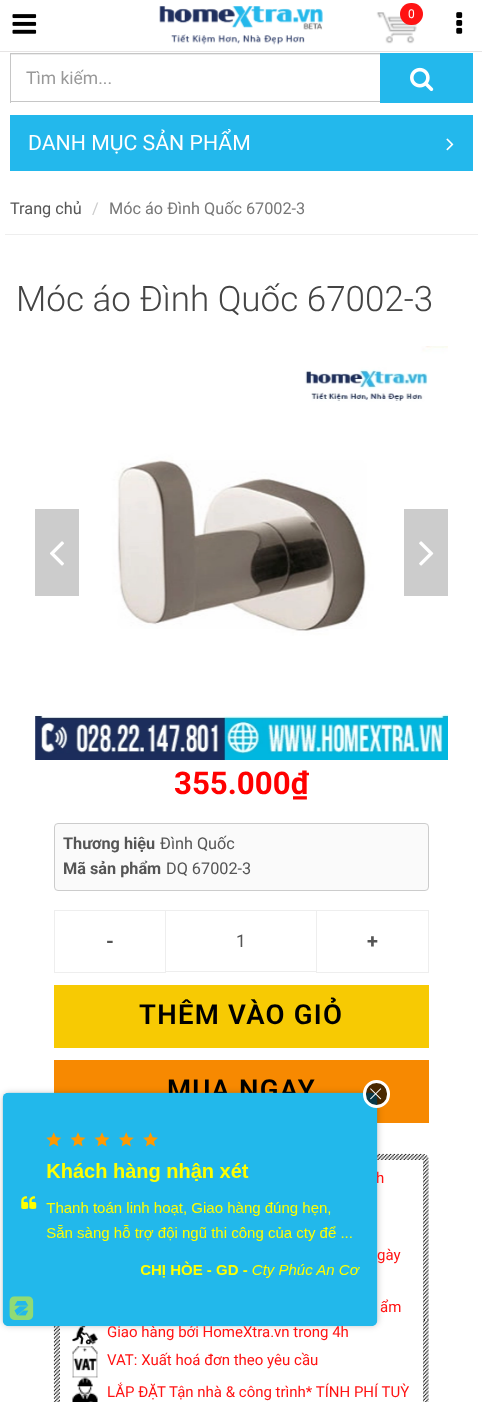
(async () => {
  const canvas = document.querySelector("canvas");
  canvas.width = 482;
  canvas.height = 1402;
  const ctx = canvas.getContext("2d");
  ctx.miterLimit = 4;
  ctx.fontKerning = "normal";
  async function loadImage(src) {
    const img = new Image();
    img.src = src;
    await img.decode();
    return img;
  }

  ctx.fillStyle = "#ffffff";
  ctx.fillRect(0, 0, 482, 1402);
  ctx.fillStyle = "#e6e4e4";
  ctx.fillRect(0, 51, 482, 1);
  ctx.drawImage(await loadImage("img/1.png"), 159, 6, 164, 39);
  ctx.drawImage(await loadImage("img/2.png"), 376, 12, 42, 32);
  ctx.fillStyle = "#ff1313";
  ctx.beginPath();
  ctx.roundRect(400, 3, 23, 22, 11);
  ctx.fill();
  for (const [x, y, w, h, color] of [
    [11, 54, 369, 1, "#ececec"],
    [10, 53, 370, 1, "#c6c6c6"],
    [10, 101, 370, 1, "#c6c6c6"],
    [10, 53, 1, 50, "#c6c6c6"],
    [380, 53, 93, 50, "#23b8ec"],
  ]) {
    ctx.fillStyle = color;
    ctx.fillRect(x, y, w, h);
  }
  ctx.drawImage(await loadImage("img/3.png"), 410, 67, 24, 25);
  ctx.drawImage(await loadImage("img/4.png"), 456, 12, 7, 22);
  ctx.fillRect(10, 115, 463, 56);
  ctx.drawImage(await loadImage("img/5.png"), 446, 138, 8, 13);
  ctx.fillStyle = "#eeeeee";
  ctx.fillRect(5, 234, 473, 1);
  ctx.drawImage(await loadImage("img/6.png"), 35, 346, 413, 414);
  ctx.fillStyle = "#cccccc";
  ctx.fillRect(35, 509, 44, 87);
  ctx.drawImage(await loadImage("img/7.png"), 50, 541, 14, 25);
  ctx.fillRect(404, 509, 44, 87);
  ctx.drawImage(await loadImage("img/8.png"), 419, 541, 15, 25);
  ctx.fillStyle = "#fafafa";
  ctx.beginPath();
  ctx.roundRect(54.5, 823.5, 374, 67, 3.5);
  ctx.fill();
  ctx.strokeStyle = "#cccccc";
  ctx.stroke();
  ctx.strokeStyle = "#eeeeee";
  ctx.strokeRect(54.5, 910.5, 111, 62);
  ctx.fillStyle = "#eeeeee";
  ctx.fillRect(166, 910, 150, 1);
  ctx.fillRect(166, 971, 150, 1);
  ctx.strokeRect(316.5, 910.5, 112, 62);
  ctx.fillStyle = "#f7ca03";
  ctx.fillRect(54, 985, 375, 63);
  ctx.fillStyle = "#f78901";
  ctx.fillRect(54, 1060, 375, 63);
  ctx.drawImage(await loadImage("img/9.png"), 53, 1153, 376, 249);
  ctx.fillStyle = "#ffffff";
  ctx.fillRect(60, 1160, 363, 242);
  ctx.drawImage(await loadImage("img/10.png"), 72, 1326, 26, 19);
  ctx.drawImage(await loadImage("img/11.png"), 72, 1346, 26, 32);
  ctx.drawImage(await loadImage("img/12.png"), 72, 1377, 26, 25);
  ctx.drawImage(await loadImage("img/13.png"), 12, 14, 25, 20);
  ctx.fillStyle = "rgba(0, 0, 0, 0.2)";
  ctx.filter = "blur(3px)";
  ctx.beginPath();
  ctx.roundRect(3, 1093, 375, 233, 6);
  ctx.fill();
  ctx.filter = "none";
  ctx.font = "12px Roboto";
  ctx.fillStyle = "#ffffff";
  ctx.fillText("0", 408, 18);
  ctx.font = "17.5px Roboto";
  ctx.fillStyle = "#999999";
  ctx.fillText("Tìm kiếm...", 26, 84);
  ctx.font = "21.25px Roboto";
  ctx.fillStyle = "#ffffff";
  ctx.fillText("DANH MỤC SẢN PHẨM", 28, 150);
  ctx.font = "16.25px Roboto";
  ctx.fillStyle = "#555555";
  ctx.fillText("Trang chủ", 10, 214);
  ctx.fillStyle = "#cccccc";
  ctx.fillText("/", 92, 214);
  ctx.fillStyle = "#777777";
  ctx.fillText("Móc áo Đình Quốc 67002-3", 109, 214);
  ctx.font = "300 35px Roboto";
  ctx.fillStyle = "#444444";
  ctx.fillText("Móc áo Đình Quốc 67002-3", 16, 311);
  ctx.font = "bold 31.25px Roboto";
  ctx.fillStyle = "#ff0000";
  ctx.fillText("355.000₫", 174, 794);
  ctx.font = "bold 16.25px Roboto";
  ctx.fillStyle = "#555555";
  ctx.fillText("Thương hiệu", 63, 849);
  ctx.font = "16.25px Roboto";
  ctx.fillText("Đình Quốc", 160, 849);
  ctx.font = "bold 16.25px Roboto";
  ctx.fillText("Mã sản phẩm", 63, 874);
  ctx.font = "16.25px Roboto";
  ctx.fillText("DQ 67002-3", 166, 874);
  ctx.font = "bold 20px Roboto";
  ctx.fillText("-", 106, 948);
  ctx.font = "17.5px Roboto";
  ctx.fillText("1", 236, 947);
  ctx.font = "bold 20px Roboto";
  ctx.fillText("+", 367, 948);
  ctx.letterSpacing = "1.25px";
  ctx.font = "600 27.5px Roboto";
  ctx.fillStyle = "#000000";
  ctx.fillText("THÊM VÀO GIỎ", 139, 1024);
  ctx.fillText("MUA NGAY", 167, 1099);
  ctx.letterSpacing = "0px";
  ctx.font = "15px Roboto";
  ctx.fillStyle = "#ff1313";
  for (const [text, x, y] of [
    ["h", 376, 1183],
    ["gày", 377, 1260],
    ["ẩm", 380, 1312],
    ["Giao hàng bởi HomeXtra.vn trong 4h", 107, 1337],
    ["VAT: Xuất hoá đơn theo yêu cầu", 107, 1365],
    ["LẮP ĐẶT Tận nhà & công trình* TÍNH PHÍ TUỲ", 107, 1397],
  ]) {
    ctx.fillText(text, x, y);
  }
  ctx.drawImage(await loadImage("img/15.png"), 2, 1092, 376, 235);
  ctx.fillStyle = "rgba(0, 0, 0, 0.7)";
  ctx.beginPath();
  ctx.roundRect(364.5, 1081.5, 24, 25, 12);
  ctx.fill();
  ctx.strokeStyle = "#ffffff";
  ctx.lineWidth = 3;
  ctx.stroke();
  ctx.drawImage(await loadImage("img/14.png"), 370, 1088, 12, 12);
})();
